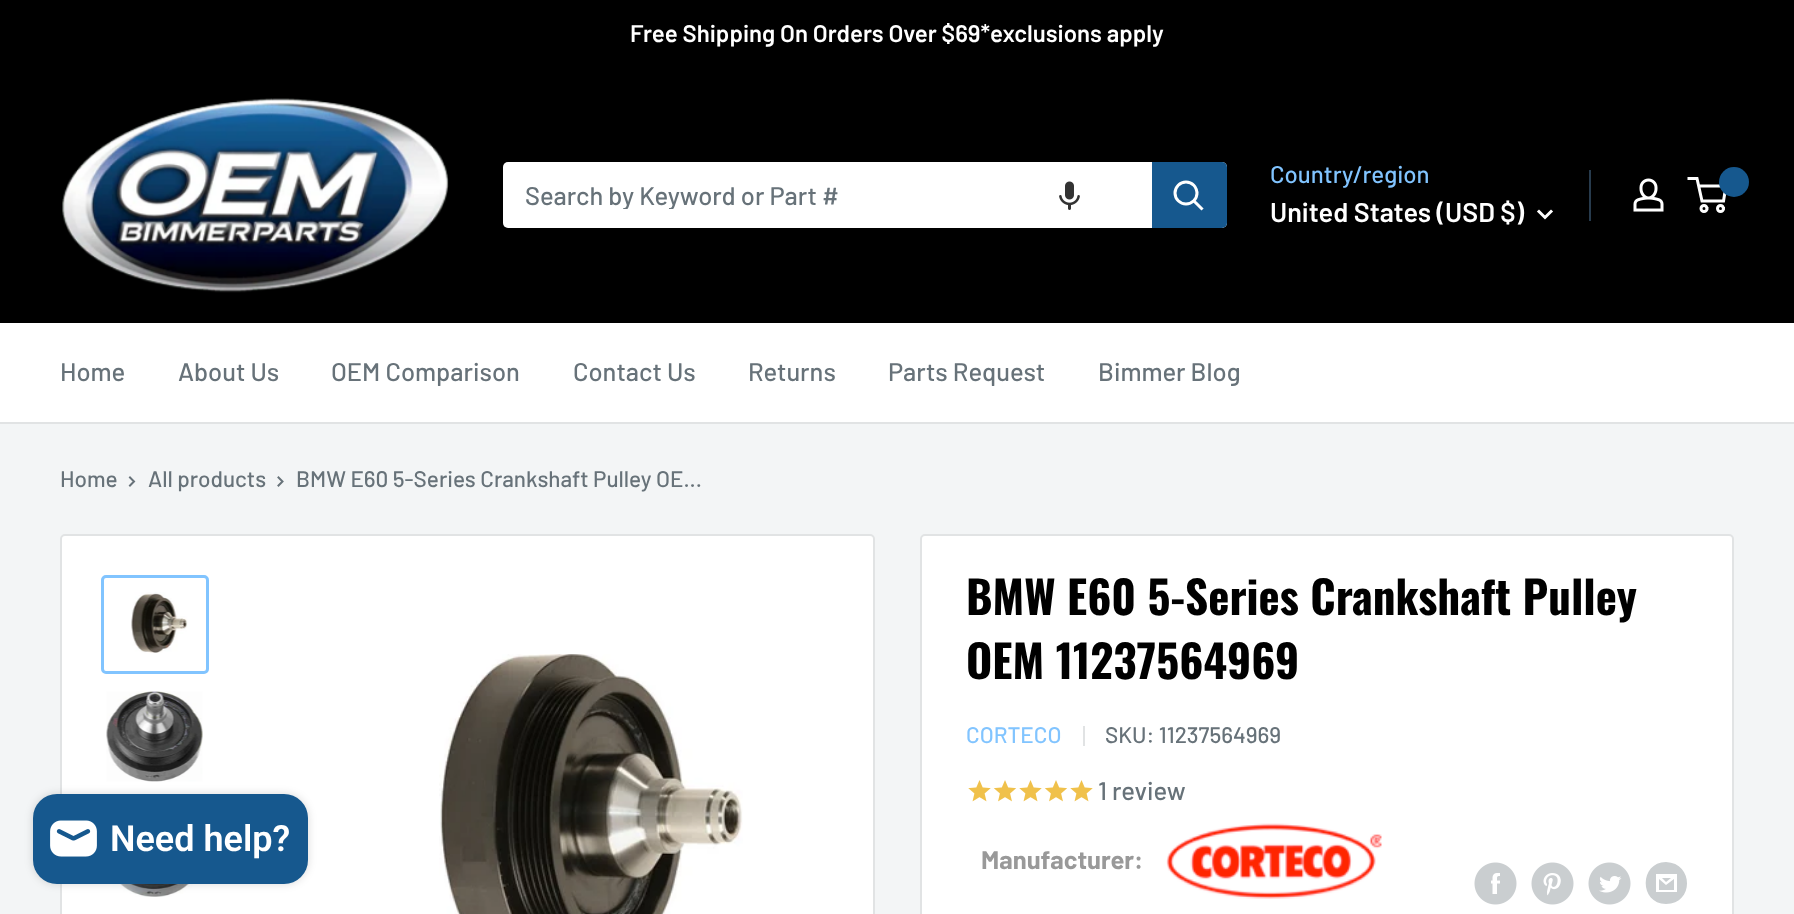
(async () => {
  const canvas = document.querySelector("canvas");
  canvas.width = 1794;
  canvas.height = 914;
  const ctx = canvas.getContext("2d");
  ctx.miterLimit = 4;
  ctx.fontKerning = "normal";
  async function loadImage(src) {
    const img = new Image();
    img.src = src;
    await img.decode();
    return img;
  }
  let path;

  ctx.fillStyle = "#f3f5f6";
  ctx.fillRect(0, 0, 1794, 914);
  ctx.fillStyle = "#000000";
  ctx.fillRect(0, 0, 1794, 323);
  ctx.drawImage(await loadImage("img/1.png"), 62, 98, 387, 195);
  ctx.fillStyle = "#ffffff";
  ctx.beginPath();
  ctx.roundRect(503, 162, 724, 66, 5);
  ctx.fill();
  ctx.drawImage(await loadImage("img/2.png"), 1059, 181, 21, 29);
  ctx.fillStyle = "#16588e";
  ctx.beginPath();
  ctx.roundRect(1152, 162, 75, 66, [0, 5, 5, 0]);
  ctx.fill();
  path = new Path2D("M1201.5 208.5L1194 201");
  ctx.strokeStyle = "#ffffff";
  ctx.lineWidth = 3;
  ctx.lineCap = "square";
  ctx.stroke(path);
  ctx.beginPath();
  ctx.arc(1186, 193, 11, 0, Math.PI * 2);
  ctx.stroke();
  path = new Path2D("M1551 211.5L1545 217.5L1539 211.5");
  ctx.stroke(path);
  ctx.fillStyle = "#273b4d";
  ctx.fillRect(1589, 170, 2, 51);
  ctx.drawImage(await loadImage("img/3.png"), 1633, 178, 31, 34);
  ctx.beginPath();
  ctx.arc(1704, 208.5, 3, 0, Math.PI * 2);
  ctx.stroke();
  ctx.beginPath();
  ctx.arc(1720.5, 208.5, 3, 0, Math.PI * 2);
  ctx.stroke();
  path = new Path2D("M1698.5 186H1726L1723.5 201H1702L1697 178.5H1687.5");
  ctx.lineCap = "butt";
  ctx.stroke(path);
  ctx.fillStyle = "#16588e";
  ctx.beginPath();
  ctx.arc(1734, 182, 15, 0, Math.PI * 2);
  ctx.fill();
  ctx.fillStyle = "#ffffff";
  ctx.fillRect(0, 323, 1794, 99);
  ctx.fillStyle = "#e1e3e4";
  ctx.fillRect(0, 422, 1794, 2);
  path = new Path2D("M130 477.5L134 481.5L130 485.5");
  ctx.strokeStyle = "#677279";
  ctx.lineWidth = 2;
  ctx.lineCap = "square";
  ctx.stroke(path);
  path = new Path2D("M278.5 477.5L282.5 481.5L278.5 485.5");
  ctx.stroke(path);
  ctx.fillStyle = "#ffffff";
  ctx.beginPath();
  ctx.roundRect(61, 535, 813, 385, 4);
  ctx.fill();
  ctx.strokeStyle = "#e1e3e4";
  ctx.stroke();
  ctx.beginPath();
  ctx.roundRect(102.5, 576.5, 105, 96, 3.5);
  ctx.strokeStyle = "#81c4ff";
  ctx.lineWidth = 3;
  ctx.stroke();
  ctx.drawImage(await loadImage("img/4.png"), 131, 592, 57, 61);
  ctx.drawImage(await loadImage("img/5.png"), 106, 691, 97, 91);
  ctx.drawImage(await loadImage("img/6.png"), 106, 884, 97, 13);
  ctx.drawImage(await loadImage("img/7.png"), 439, 654, 304, 260);
  ctx.beginPath();
  ctx.roundRect(921, 535, 812, 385, 4);
  ctx.fill();
  ctx.strokeStyle = "#e1e3e4";
  ctx.lineWidth = 2;
  ctx.stroke();
  ctx.fillStyle = "#e1e3e4";
  ctx.fillRect(1083, 726, 2, 20);
  ctx.drawImage(await loadImage("img/8.png"), 968, 780, 23, 22);
  ctx.drawImage(await loadImage("img/9.png"), 993, 780, 24, 22);
  ctx.drawImage(await loadImage("img/8.png"), 1019, 780, 23, 22);
  ctx.drawImage(await loadImage("img/9.png"), 1044, 780, 24, 22);
  ctx.drawImage(await loadImage("img/8.png"), 1070, 780, 23, 22);
  ctx.drawImage(await loadImage("img/10.png"), 1166, 823, 216, 76);
  ctx.drawImage(await loadImage("img/11.png"), 1474, 862, 43, 43);
  ctx.drawImage(await loadImage("img/12.png"), 1531, 862, 43, 43);
  ctx.drawImage(await loadImage("img/13.png"), 1588, 862, 43, 43);
  ctx.fillStyle = "#caced0";
  path = new Path2D("M1666 904C1639 904 1639 862 1666 862C1694 863 1694 904 1666 904ZM1662 878H1671L1666 882ZM1674 879V890H1659V879L1666 885ZM1677 874H1656V892H1677Z");
  ctx.fill(path);
  ctx.fillStyle = "rgba(0, 0, 0, 0.15)";
  ctx.filter = "blur(4px)";
  ctx.beginPath();
  ctx.roundRect(33, 794, 275, 90, 24);
  ctx.fill();
  ctx.filter = "none";
  ctx.fillStyle = "#16588e";
  ctx.beginPath();
  ctx.roundRect(33, 794, 275, 90, 24);
  ctx.fill();
  ctx.drawImage(await loadImage("img/14.png"), 50, 820, 47, 37);
  ctx.font = "600 24px Barlow";
  ctx.fillStyle = "#ffffff";
  ctx.fillText("Free Shipping On Orders Over $69*exclusions apply", 630, 42);
  ctx.save();
  ctx.beginPath();
  ctx.rect(525, 179, 605, 30);
  ctx.clip();
  ctx.font = "500 25.5px Barlow";
  ctx.fillStyle = "#677279";
  ctx.fillText("Search by Keyword or Part #", 525, 205);
  ctx.restore();
  ctx.font = "500 24px Barlow";
  ctx.fillStyle = "#81c4ff";
  ctx.fillText("Country/region", 1270, 183);
  ctx.font = "600 27px Barlow";
  ctx.fillStyle = "#ffffff";
  ctx.fillText("United States (USD $)", 1270, 222);
  ctx.font = "500 25.5px Barlow";
  ctx.fillStyle = "#677279";
  for (const [text, x, y] of [
    ["Home", 60, 381],
    ["About Us", 178, 381],
    ["OEM Comparison", 331, 381],
    ["Contact Us", 573, 381],
    ["Returns", 748, 381],
    ["Parts Request", 888, 381],
    ["Bimmer Blog", 1098, 381],
  ]) {
    ctx.fillText(text, x, y);
  }
  ctx.font = "500 22.5px Barlow";
  for (const [text, x, y] of [
    ["Home", 60, 487],
    ["All products", 148, 487],
    ["BMW E60 5-Series Crankshaft Pulley OE...", 296, 487],
  ]) {
    ctx.fillText(text, x, y);
  }
  ctx.font = "bold 45px Oswald";
  ctx.fillStyle = "#000000";
  ctx.fillText("BMW E60 5-Series Crankshaft Pulley", 966, 615);
  ctx.fillText("OEM 11237564969", 966, 679);
  ctx.font = "500 22.5px Barlow";
  ctx.fillStyle = "#81c4ff";
  ctx.fillText("CORTECO", 966, 743);
  ctx.fillStyle = "#677279";
  ctx.fillText("SKU: 11237564969", 1105, 743);
  ctx.font = "500 25.5px Barlow";
  ctx.fillText("1 review", 1098, 800);
  ctx.font = "bold 25.5px Barlow";
  ctx.fillStyle = "#999999";
  ctx.fillText("Manufacturer:", 981, 869);
  ctx.font = "600 36px Roboto";
  ctx.fillStyle = "#ffffff";
  ctx.fillText("Need help?", 110, 851);
})();
